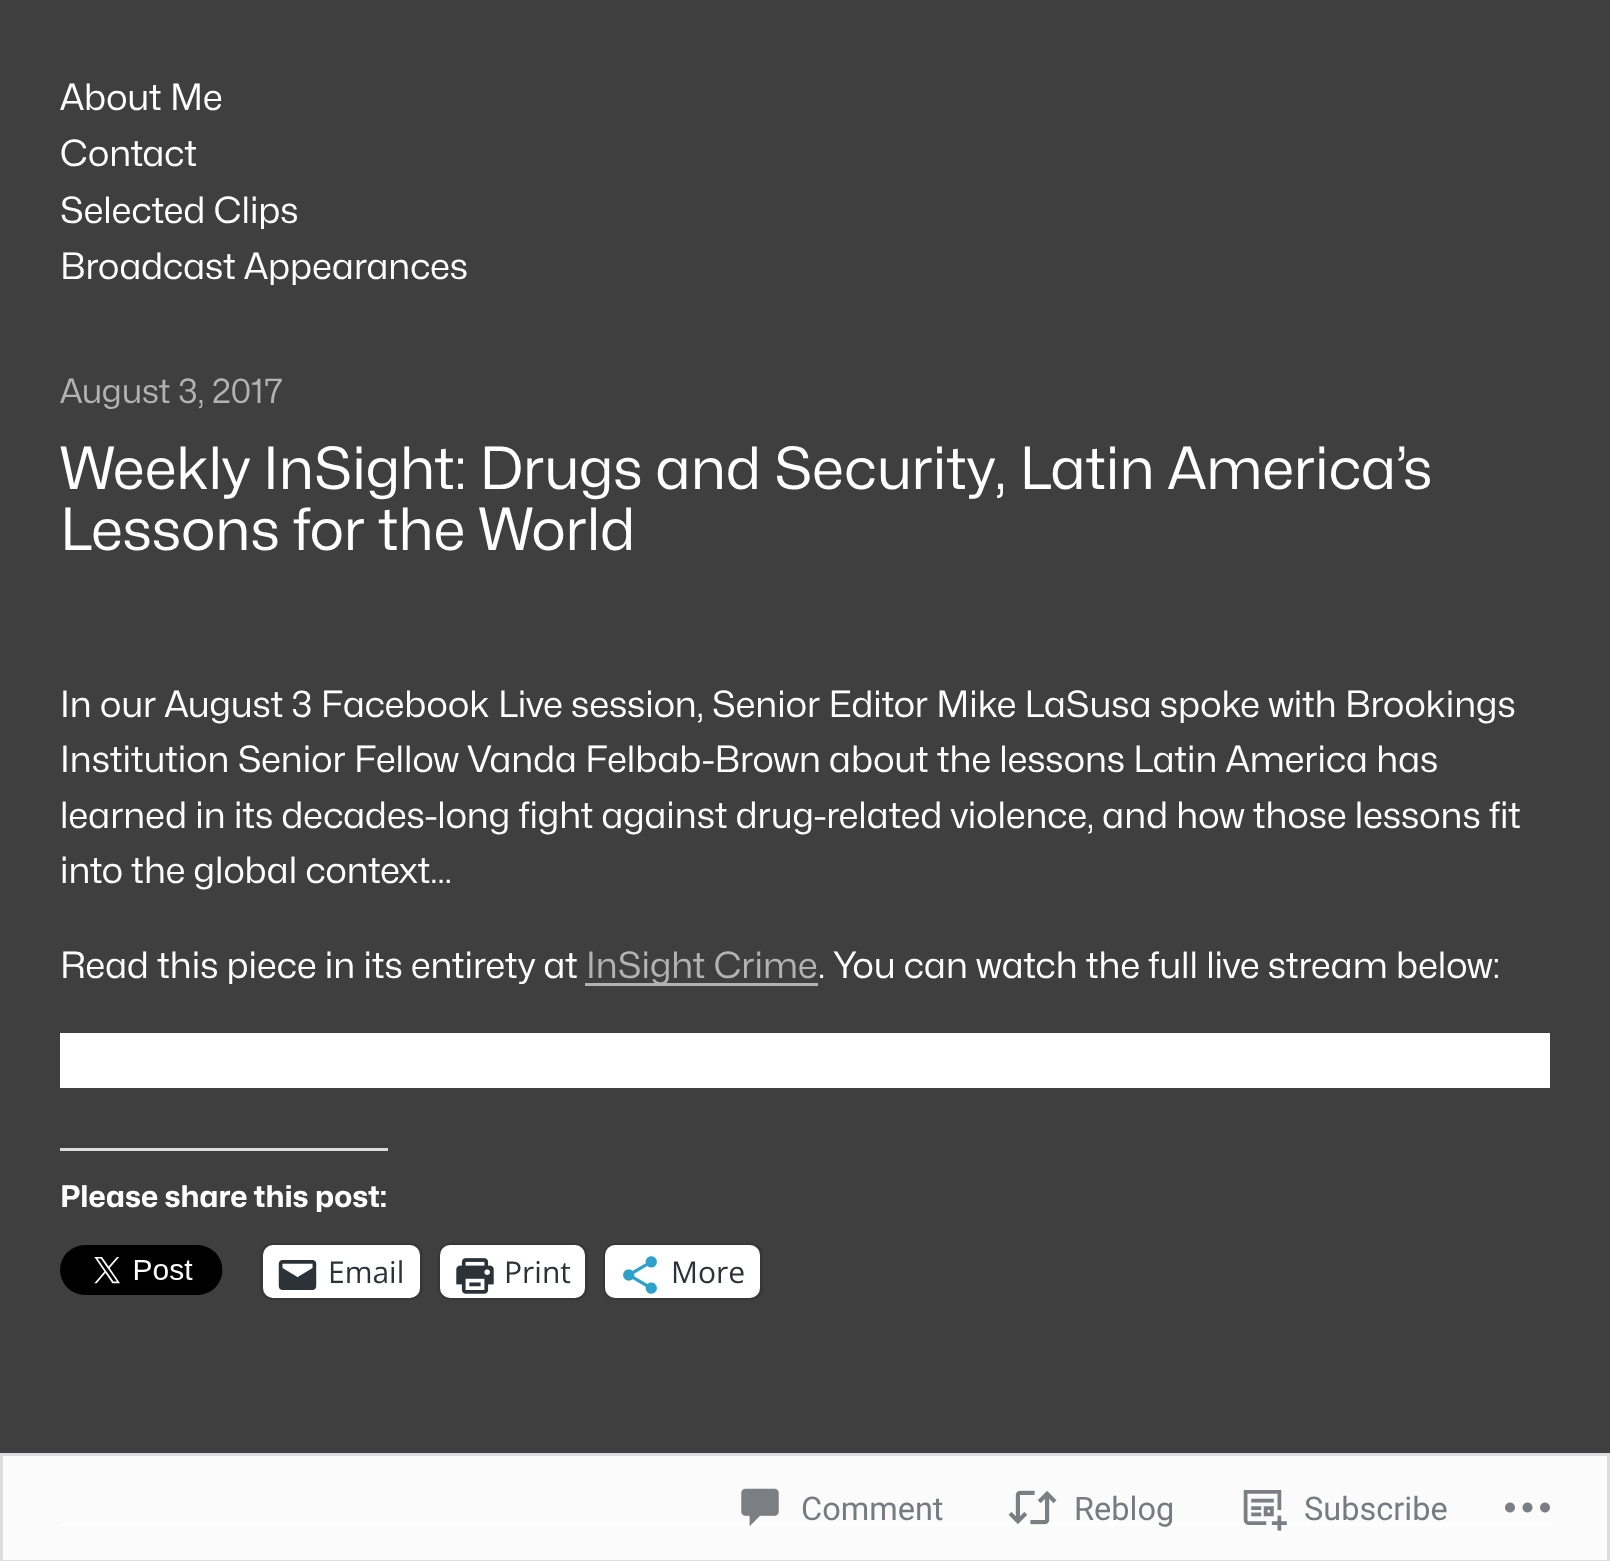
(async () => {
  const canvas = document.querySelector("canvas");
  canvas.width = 1610;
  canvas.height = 1561;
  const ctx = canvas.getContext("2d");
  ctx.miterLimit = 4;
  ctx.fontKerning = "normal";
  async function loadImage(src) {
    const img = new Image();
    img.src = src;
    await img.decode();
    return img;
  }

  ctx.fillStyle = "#3f3f3f";
  ctx.fillRect(0, 0, 1610, 1561);
  for (const [x, y, w, h, color] of [
    [0, 1453, 1610, 108, "#fbfbfb"],
    [585, 983, 233, 3, "#b2b2b2"],
    [60, 1033, 1490, 55, "#ffffff"],
    [60, 1148, 328, 3, "#dcdcde"],
  ]) {
    ctx.fillStyle = color;
    ctx.fillRect(x, y, w, h);
  }
  ctx.drawImage(await loadImage("img/1.png"), 60, 1245, 163, 50);
  ctx.beginPath();
  ctx.roundRect(261.5, 1244.5, 160, 54, 11.5);
  ctx.strokeStyle = "#373737";
  ctx.lineWidth = 3;
  ctx.stroke();
  ctx.fillStyle = "#ffffff";
  ctx.beginPath();
  ctx.roundRect(263, 1245, 157, 53, 10);
  ctx.fill();
  ctx.drawImage(await loadImage("img/2.png"), 278, 1260, 39, 30);
  ctx.beginPath();
  ctx.roundRect(439.5, 1244.5, 147, 54, 11.5);
  ctx.stroke();
  ctx.beginPath();
  ctx.roundRect(440, 1245, 145, 53, 10);
  ctx.fill();
  ctx.drawImage(await loadImage("img/3.png"), 456, 1258, 38, 36);
  ctx.beginPath();
  ctx.roundRect(604.5, 1244.5, 157, 54, 11.5);
  ctx.stroke();
  ctx.beginPath();
  ctx.roundRect(605, 1245, 155, 53, 10);
  ctx.fill();
  ctx.drawImage(await loadImage("img/4.png"), 623, 1256, 34, 38);
  ctx.fillRect(60, 1523, 1490, 3);
  ctx.strokeStyle = "rgba(220, 220, 222, 0.98)";
  ctx.strokeRect(1.5, 1454.5, 1607, 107);
  ctx.drawImage(await loadImage("img/5.png"), 741, 1488, 38, 39);
  ctx.drawImage(await loadImage("img/6.png"), 1008, 1490, 49, 35);
  ctx.drawImage(await loadImage("img/7.png"), 1243, 1490, 44, 41);
  ctx.drawImage(await loadImage("img/8.png"), 1505, 1502, 45, 11);
  ctx.font = "36.25px Mona Sans";
  for (const [text, x, y] of [
    ["About Me", 60, 110],
    ["Contact", 60, 166],
    ["Selected Clips", 60, 223],
    ["Broadcast Appearances", 60, 279],
  ]) {
    ctx.fillText(text, x, y);
  }
  ctx.font = "33.75px Mona Sans";
  ctx.fillStyle = "#b2b2b2";
  ctx.fillText("August 3, 2017", 60, 403);
  ctx.wordSpacing = "-0.25px";
  ctx.font = "58.25px Mona Sans";
  ctx.fillStyle = "#ffffff";
  ctx.fillText("Weekly InSight: Drugs and Security, Latin America’s", 60, 489);
  ctx.wordSpacing = "0px";
  ctx.fillText("Lessons for the World", 60, 550);
  ctx.font = "36.25px Mona Sans";
  for (const [text, x, y] of [
    ["In our August 3 Facebook Live session, Senior Editor Mike LaSusa spoke with Brookings", 60, 717],
    ["Institution Senior Fellow Vanda Felbab-Brown about the lessons Latin America has", 60, 772],
    ["learned in its decades-long fight against drug-related violence, and how those lessons fit", 60, 828],
    ["into the global context…", 60, 883],
    ["Read this piece in its entirety at", 60, 978],
  ]) {
    ctx.fillText(text, x, y);
  }
  ctx.fillStyle = "#b2b2b2";
  ctx.fillText("InSight Crime", 586, 978);
  ctx.fillStyle = "#ffffff";
  ctx.fillText(". You can watch the full live stream below:", 818, 978);
  ctx.font = "bold 30px Mona Sans";
  ctx.fillText("Please share this post:", 60, 1207);
  ctx.font = "30px Open Sans";
  ctx.fillStyle = "#2c3338";
  for (const [text, x, y] of [
    ["Email", 328, 1283],
    ["Print", 504, 1283],
    ["More", 671, 1283],
  ]) {
    ctx.fillText(text, x, y);
  }
  ctx.font = "32.5px Roboto";
  ctx.fillStyle = "#777b81";
  for (const [text, x, y] of [
    ["Comment", 801, 1520],
    ["Reblog", 1074, 1520],
    ["Subscribe", 1304, 1520],
  ]) {
    ctx.fillText(text, x, y);
  }
})();
